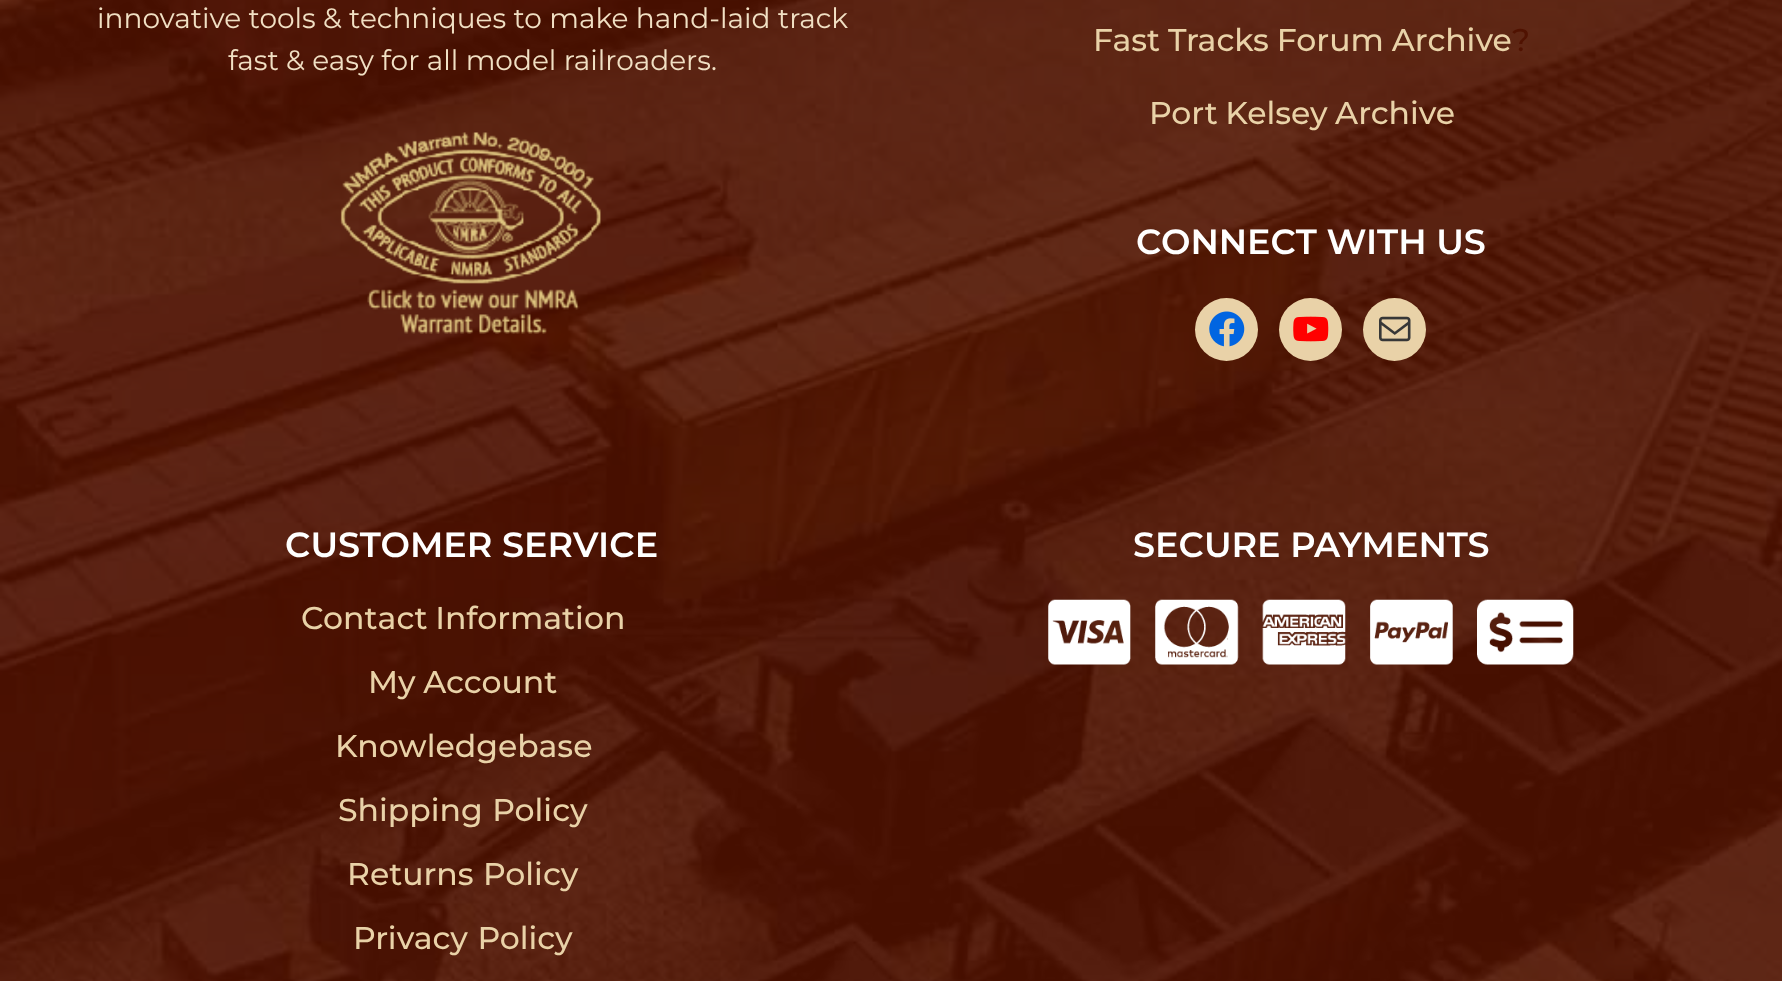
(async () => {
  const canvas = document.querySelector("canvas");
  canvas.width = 1782;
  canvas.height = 981;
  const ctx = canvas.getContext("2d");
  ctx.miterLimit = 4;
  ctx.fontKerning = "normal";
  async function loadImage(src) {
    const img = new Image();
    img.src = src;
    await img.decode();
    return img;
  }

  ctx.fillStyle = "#501201";
  ctx.fillRect(0, 0, 1782, 981);
  ctx.drawImage(await loadImage("img/1.png"), 0, 0, 1782, 981);
  ctx.drawImage(await loadImage("img/2.png"), 340, 132, 261, 202);
  ctx.fillStyle = "#e9d2a8";
  ctx.beginPath();
  ctx.arc(1226.5, 329.5, 31.5, 0, Math.PI * 2);
  ctx.fill();
  ctx.drawImage(await loadImage("img/3.png"), 1209, 311, 36, 36);
  ctx.beginPath();
  ctx.arc(1310.5, 329.5, 31.5, 0, Math.PI * 2);
  ctx.fill();
  ctx.drawImage(await loadImage("img/4.png"), 1293, 316, 36, 26);
  ctx.beginPath();
  ctx.arc(1394.5, 329.5, 31.5, 0, Math.PI * 2);
  ctx.fill();
  ctx.drawImage(await loadImage("img/5.png"), 1379, 316, 32, 26);
  ctx.drawImage(await loadImage("img/6.png"), 1048, 599, 526, 66);
  ctx.font = "100 28px Montserrat";
  ctx.fillStyle = "#f1e0c4";
  ctx.fillText("innovative tools & techniques to make hand-laid track", 97, 28);
  ctx.fillText("fast & easy for all model railroaders.", 228, 70);
  ctx.wordSpacing = "-0.5px";
  ctx.font = "100 31.5px 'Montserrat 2'";
  ctx.fillStyle = "#e9d2a8";
  ctx.fillText("Fast Tracks Forum Archive", 1093, 51);
  ctx.wordSpacing = "0px";
  ctx.fillStyle = "#501201";
  ctx.fillText("?", 1512, 51);
  ctx.wordSpacing = "-1px";
  ctx.fillStyle = "#e9d2a8";
  ctx.fillText("Port Kelsey Archive", 1149, 124);
  ctx.wordSpacing = "0px";
  ctx.font = "100 35px 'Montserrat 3'";
  ctx.fillStyle = "#ffffff";
  ctx.fillText("CONNECT WITH US", 1136, 254);
  ctx.fillText("CUSTOMER SERVICE", 285, 557);
  ctx.wordSpacing = "-1px";
  ctx.font = "100 31.5px 'Montserrat 2'";
  ctx.fillStyle = "#e9d2a8";
  ctx.fillText("Contact Information", 301, 629);
  ctx.fillText("My Account", 368, 693);
  ctx.wordSpacing = "0px";
  ctx.fillText("Knowledgebase", 335, 757);
  ctx.wordSpacing = "1px";
  for (const [text, x, y] of [
    ["Shipping Policy", 338, 821],
    ["Returns Policy", 347, 885],
    ["Privacy Policy", 353, 949],
  ]) {
    ctx.fillText(text, x, y);
  }
  ctx.wordSpacing = "0px";
  ctx.font = "100 35px 'Montserrat 3'";
  ctx.fillStyle = "#ffffff";
  ctx.fillText("SECURE PAYMENTS", 1133, 557);
})();
